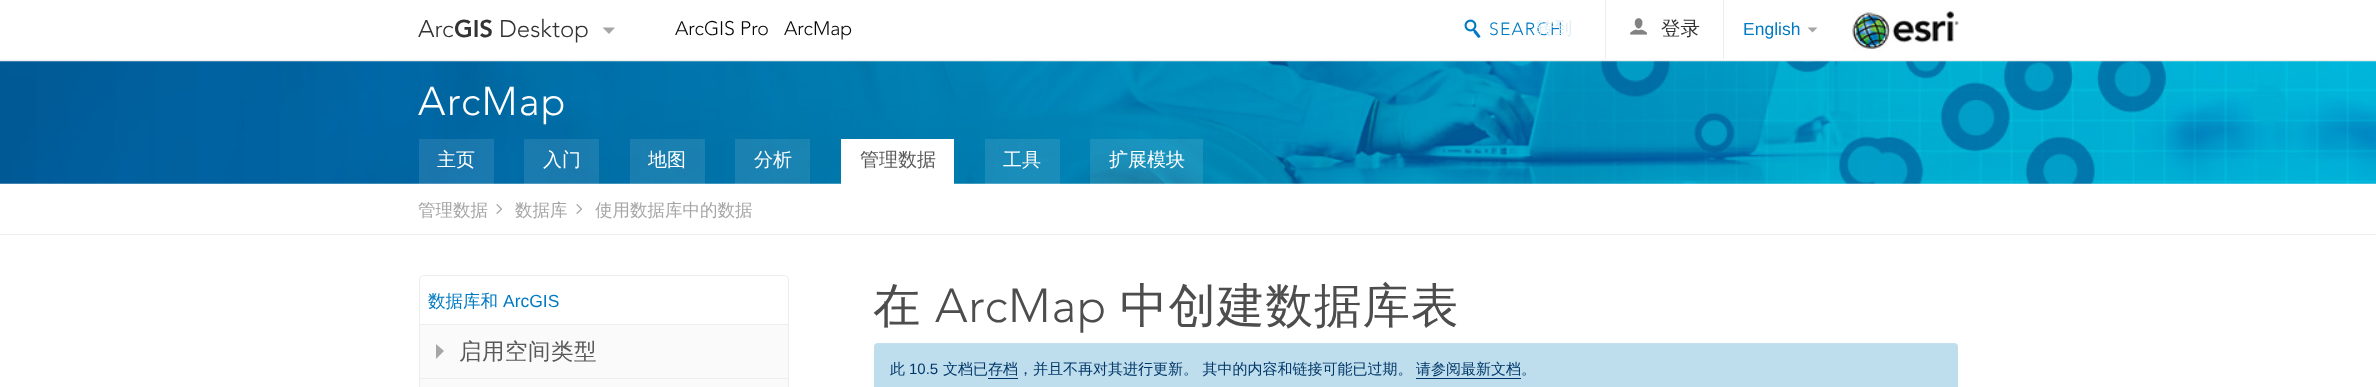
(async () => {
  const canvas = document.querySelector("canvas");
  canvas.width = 2376;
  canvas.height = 387;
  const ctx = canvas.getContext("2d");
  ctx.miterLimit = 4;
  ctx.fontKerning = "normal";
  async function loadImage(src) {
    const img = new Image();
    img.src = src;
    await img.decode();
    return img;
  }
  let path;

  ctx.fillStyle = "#ffffff";
  ctx.fillRect(0, 0, 2376, 387);
  ctx.fillStyle = "#ededed";
  ctx.fillRect(0, 60, 2376, 1);
  ctx.fillStyle = "#a6a6a6";
  path = new Path2D("M602.5 27.5H615L609 34Z");
  ctx.fill(path);
  ctx.drawImage(await loadImage("img/1.png"), 1464, 19, 17, 19);
  ctx.fillStyle = "#ededed";
  ctx.fillRect(1723, 0, 1, 59);
  ctx.fillRect(1605, 0, 1, 59);
  ctx.drawImage(await loadImage("img/2.png"), 1630, 18, 17, 17);
  ctx.fillStyle = "#a6a6a6";
  path = new Path2D("M1807.5 27.5H1817.5L1812.5 32.5Z");
  ctx.fill(path);
  ctx.drawImage(await loadImage("img/3.png"), 1852, 10, 107, 41);
  ctx.drawImage(await loadImage("img/4.png"), 0, 61, 2376, 123);
  for (const [x, y, w, h, color] of [
    [419, 139, 75, 45, "rgba(255, 255, 255, 0.1)"],
    [524, 139, 75, 45, "rgba(255, 255, 255, 0.1)"],
    [630, 139, 75, 45, "rgba(255, 255, 255, 0.1)"],
    [735, 139, 75, 45, "rgba(255, 255, 255, 0.1)"],
    [841, 139, 113, 45, "#ffffff"],
    [985, 139, 75, 45, "rgba(255, 255, 255, 0.1)"],
    [1090, 139, 113, 45, "rgba(255, 255, 255, 0.1)"],
    [0, 234, 2376, 1, "#ededed"],
  ]) {
    ctx.fillStyle = color;
    ctx.fillRect(x, y, w, h);
  }
  ctx.drawImage(await loadImage("img/5.png"), 496, 204, 7, 10);
  ctx.drawImage(await loadImage("img/5.png"), 576, 204, 7, 10);
  ctx.beginPath();
  ctx.roundRect(419.5, 275.5, 369, 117, 4.5);
  ctx.strokeStyle = "#ededed";
  ctx.stroke();
  for (const [x, y, w, h, color] of [
    [420, 324, 368, 1, "#ededed"],
    [420, 325, 368, 53, "#fafafa"],
    [420, 378, 368, 1, "#ededed"],
  ]) {
    ctx.fillStyle = color;
    ctx.fillRect(x, y, w, h);
  }
  ctx.fillStyle = "#a6a6a6";
  path = new Path2D("M436 359V344L444 351Z");
  ctx.fill(path);
  ctx.fillStyle = "#fafafa";
  ctx.fillRect(420, 379, 368, 8);
  ctx.fillStyle = "#bedded";
  ctx.beginPath();
  ctx.roundRect(874, 343, 1084, 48, 4);
  ctx.fill();
  ctx.fillStyle = "rgba(255, 255, 255, 0.1)";
  path = new Path2D("M878 344H1954C1956 344 1958 345 1958 348C1958 345 1957 343 1954 343H878C875 343 874 345 874 348C874 345 875 344 878 344Z");
  ctx.fill(path);
  ctx.fillStyle = "#003768";
  ctx.fillRect(1416, 378, 105, 1);
  ctx.fillRect(988, 378, 30, 1);
  ctx.font = "300 24px 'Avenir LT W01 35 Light'";
  ctx.fillStyle = "#333333";
  ctx.fillText("Arc", 418, 37);
  ctx.font = "900 24px 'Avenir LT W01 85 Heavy'";
  ctx.fillText("GIS", 454, 37);
  ctx.font = "300 24px 'Avenir LT W01 35 Light'";
  ctx.fillText("Desktop", 499, 37);
  ctx.font = "300 19.5px 'Avenir LT W01 35 Light'";
  ctx.fillStyle = "#050505";
  ctx.fillText("ArcGIS Pro", 675, 35);
  ctx.fillText("ArcMap", 784, 35);
  ctx.letterSpacing = "1.25px";
  ctx.font = "300 17.5px 'Avenir LT W01 35 Light'";
  ctx.fillStyle = "#007ac2";
  ctx.fillText("SEARCH", 1489, 35);
  ctx.font = "500 17.5px WenQuanYi Zen Hei";
  ctx.fillStyle = "#dfeef7";
  ctx.fillText("转到", 1536, 34);
  ctx.letterSpacing = "0px";
  ctx.font = "500 19.5px WenQuanYi Zen Hei";
  ctx.fillStyle = "#333333";
  ctx.fillText("登录", 1661, 35);
  ctx.font = "17.5px Liberation Sans";
  ctx.fillStyle = "#007ac2";
  ctx.fillText("English", 1743, 35);
  ctx.letterSpacing = "1.5px";
  ctx.font = "300 40px 'Avenir LT W01 35 Light'";
  ctx.fillStyle = "#ffffff";
  ctx.fillText("ArcMap", 418, 115);
  ctx.letterSpacing = "0px";
  ctx.font = "500 19px WenQuanYi Zen Hei";
  for (const [text, x, y] of [
    ["主页", 437, 166],
    ["入门", 543, 166],
    ["地图", 648, 166],
    ["分析", 754, 166],
  ]) {
    ctx.fillText(text, x, y);
  }
  ctx.fillStyle = "#595959";
  ctx.fillText("管理数据", 860, 166);
  ctx.fillStyle = "#ffffff";
  ctx.fillText("工具", 1003, 166);
  ctx.fillText("扩展模块", 1109, 166);
  ctx.font = "500 17.5px WenQuanYi Zen Hei";
  ctx.fillStyle = "#a6a6a6";
  for (const [text, x, y] of [
    ["管理数据", 418, 216],
    ["数据库", 515, 216],
    ["使用数据库中的数据", 595, 216],
  ]) {
    ctx.fillText(text, x, y);
  }
  ctx.fillStyle = "#007ac2";
  ctx.fillText("数据库和", 428, 307);
  ctx.font = "17.5px Liberation Sans";
  ctx.fillText("ArcGIS", 503, 307);
  ctx.letterSpacing = "0.5px";
  ctx.font = "500 22.5px WenQuanYi Zen Hei";
  ctx.fillStyle = "#595959";
  ctx.fillText("启用空间类型", 459, 359);
  ctx.letterSpacing = "1px";
  ctx.font = "500 47.5px WenQuanYi Zen Hei";
  ctx.fillStyle = "#4d4d4d";
  ctx.fillText("在", 873, 322);
  ctx.font = "300 47.5px 'Avenir LT W01 35 Light'";
  ctx.fillText("ArcMap", 935, 322);
  ctx.font = "500 47.5px WenQuanYi Zen Hei";
  ctx.fillText("中创建数据库表", 1120, 322);
  ctx.letterSpacing = "0px";
  ctx.font = "500 15px WenQuanYi Zen Hei";
  ctx.fillStyle = "#003768";
  ctx.fillText("此", 890, 374);
  ctx.font = "15px Liberation Sans";
  ctx.fillText("10.5", 909, 374);
  ctx.font = "500 15px WenQuanYi Zen Hei";
  for (const [text, x, y] of [
    ["文档已存档", 943, 374],
    ["，并且不再对其进行更新。 其中的内容和链接可能已过期。", 1018, 374],
    ["请参阅最新文档。", 1416, 374],
  ]) {
    ctx.fillText(text, x, y);
  }
})();
